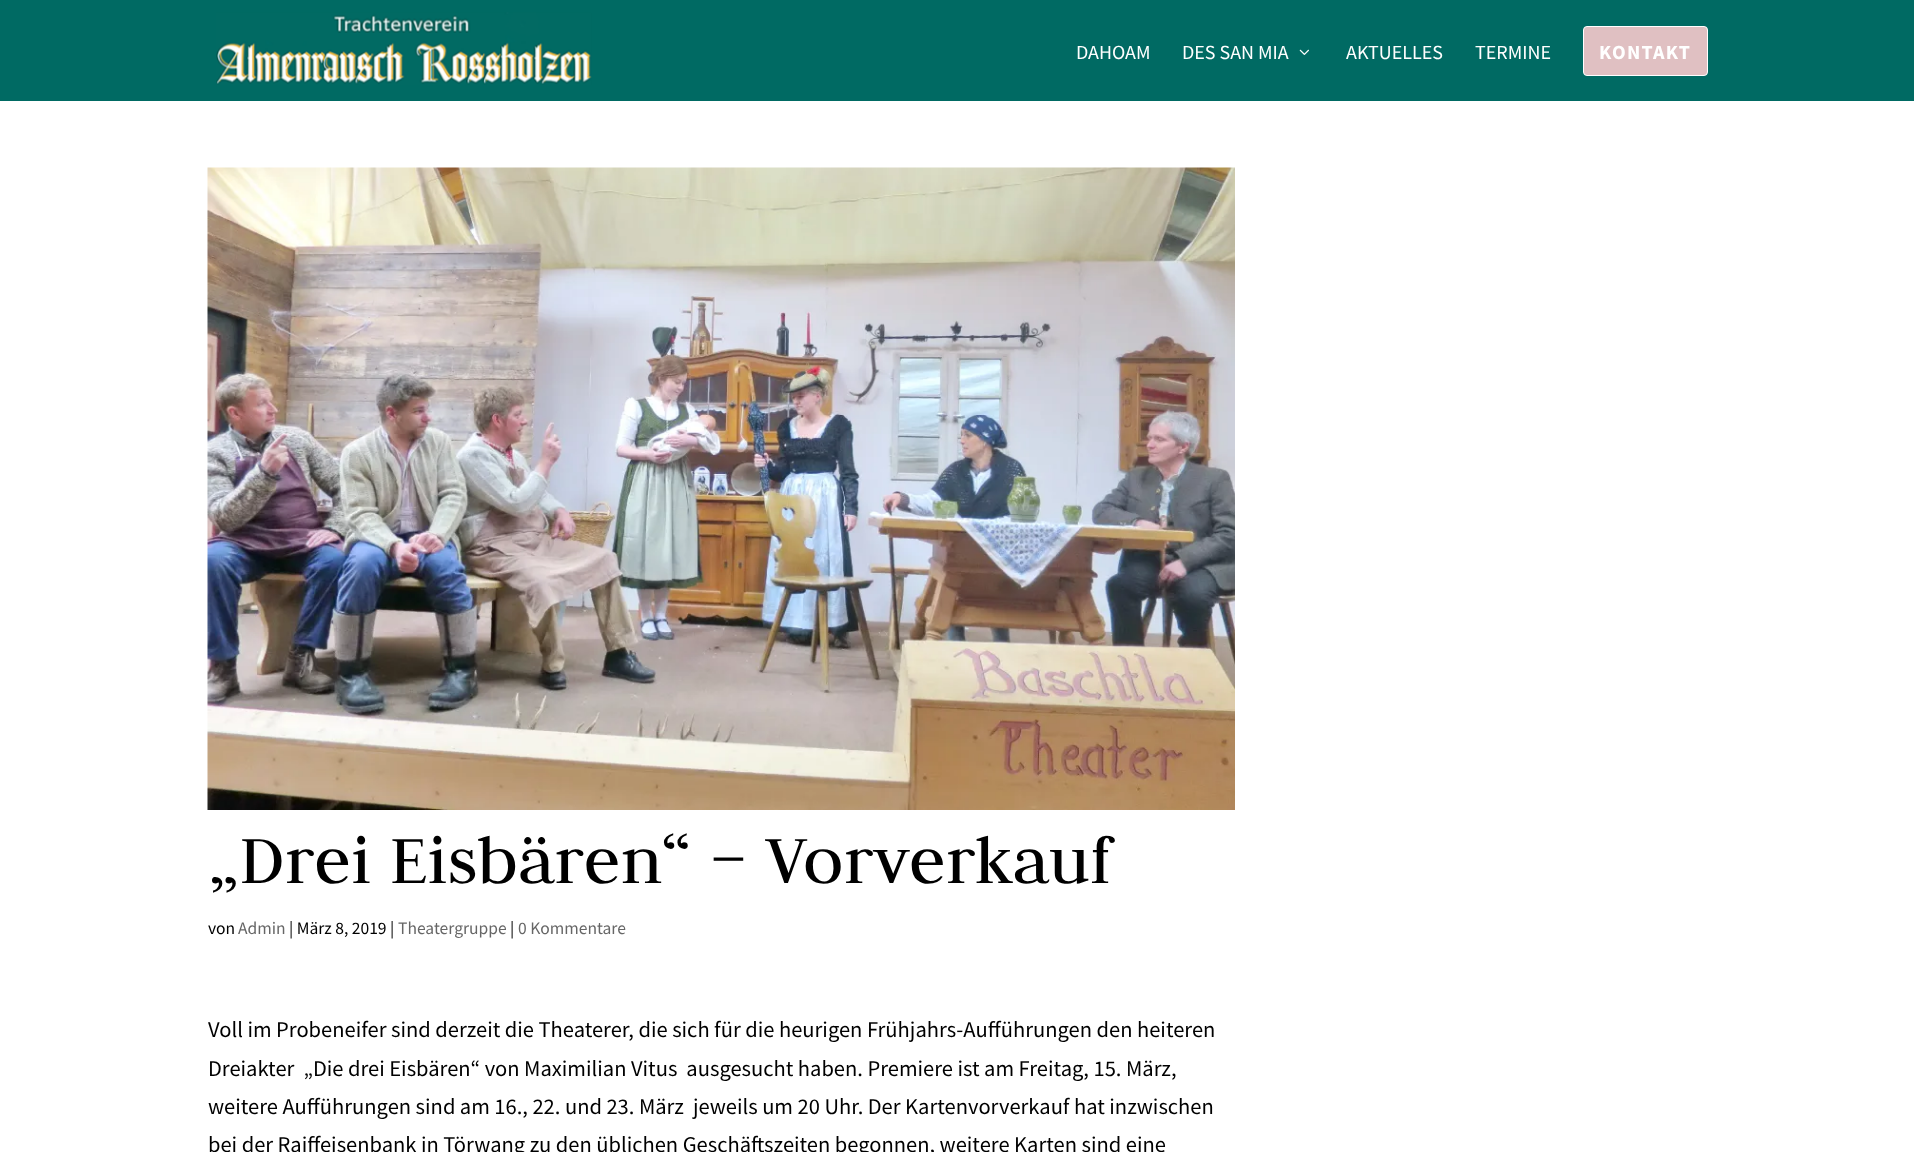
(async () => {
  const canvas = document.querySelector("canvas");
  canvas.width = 1914;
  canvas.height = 1152;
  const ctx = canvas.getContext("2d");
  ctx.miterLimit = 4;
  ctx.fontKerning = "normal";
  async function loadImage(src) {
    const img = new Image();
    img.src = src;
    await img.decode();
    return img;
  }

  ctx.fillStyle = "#ffffff";
  ctx.fillRect(0, 0, 1914, 1152);
  ctx.fillStyle = "#006a63";
  ctx.fillRect(0, 0, 1914, 101);
  ctx.drawImage(await loadImage("img/1.png"), 216, 12, 376, 73);
  ctx.drawImage(await loadImage("img/2.png"), 1299, 49, 10, 6);
  ctx.fillStyle = "#e0c0c2";
  ctx.beginPath();
  ctx.roundRect(1583.5, 26.5, 124, 49, 3.5);
  ctx.fill();
  ctx.strokeStyle = "#ffffff";
  ctx.stroke();
  ctx.drawImage(await loadImage("img/3.png"), 207, 167, 1028, 643);
  ctx.font = "20px Source Sans Pro";
  ctx.fillStyle = "#ffffff";
  for (const [text, x, y] of [
    ["DAHOAM", 1076, 59],
    ["DES SAN MIA", 1182, 59],
    ["AKTUELLES", 1346, 59],
    ["TERMINE", 1475, 59],
  ]) {
    ctx.fillText(text, x, y);
  }
  ctx.letterSpacing = "1.25px";
  ctx.font = "bold 20px Source Sans Pro";
  ctx.fillText("KONTAKT", 1599, 59);
  ctx.letterSpacing = "0px";
  ctx.font = "75px Judson";
  ctx.fillStyle = "#000000";
  ctx.fillText("„Drei Eisbären“ – Vorverkauf", 208, 883);
  ctx.font = "17.5px Source Sans Pro";
  ctx.fillText("von", 208, 934);
  ctx.fillStyle = "#666666";
  ctx.fillText("Admin", 238, 934);
  ctx.fillStyle = "#000000";
  ctx.fillText("| März 8, 2019 |", 289, 934);
  ctx.fillStyle = "#666666";
  ctx.fillText("Theatergruppe", 398, 934);
  ctx.fillStyle = "#000000";
  ctx.fillText("|", 510, 934);
  ctx.fillStyle = "#666666";
  ctx.fillText("0 Kommentare", 518, 934);
  ctx.font = "22.5px Source Sans Pro";
  ctx.fillStyle = "#000000";
  for (const [text, x, y] of [
    ["Voll im Probeneifer sind derzeit die Theaterer, die sich für die heurigen Frühjahrs-Aufführungen den heiteren", 208, 1037],
    ["Dreiakter  „Die drei Eisbären“ von Maximilian Vitus  ausgesucht haben. Premiere ist am Freitag, 15. März,", 208, 1076],
    ["weitere Aufführungen sind am 16., 22. und 23. März  jeweils um 20 Uhr. Der Kartenvorverkauf hat inzwischen", 208, 1114],
    ["bei der Raiffeisenbank in Törwang zu den üblichen Geschäftszeiten begonnen, weitere Karten sind eine", 208, 1152],
  ]) {
    ctx.fillText(text, x, y);
  }
})();
